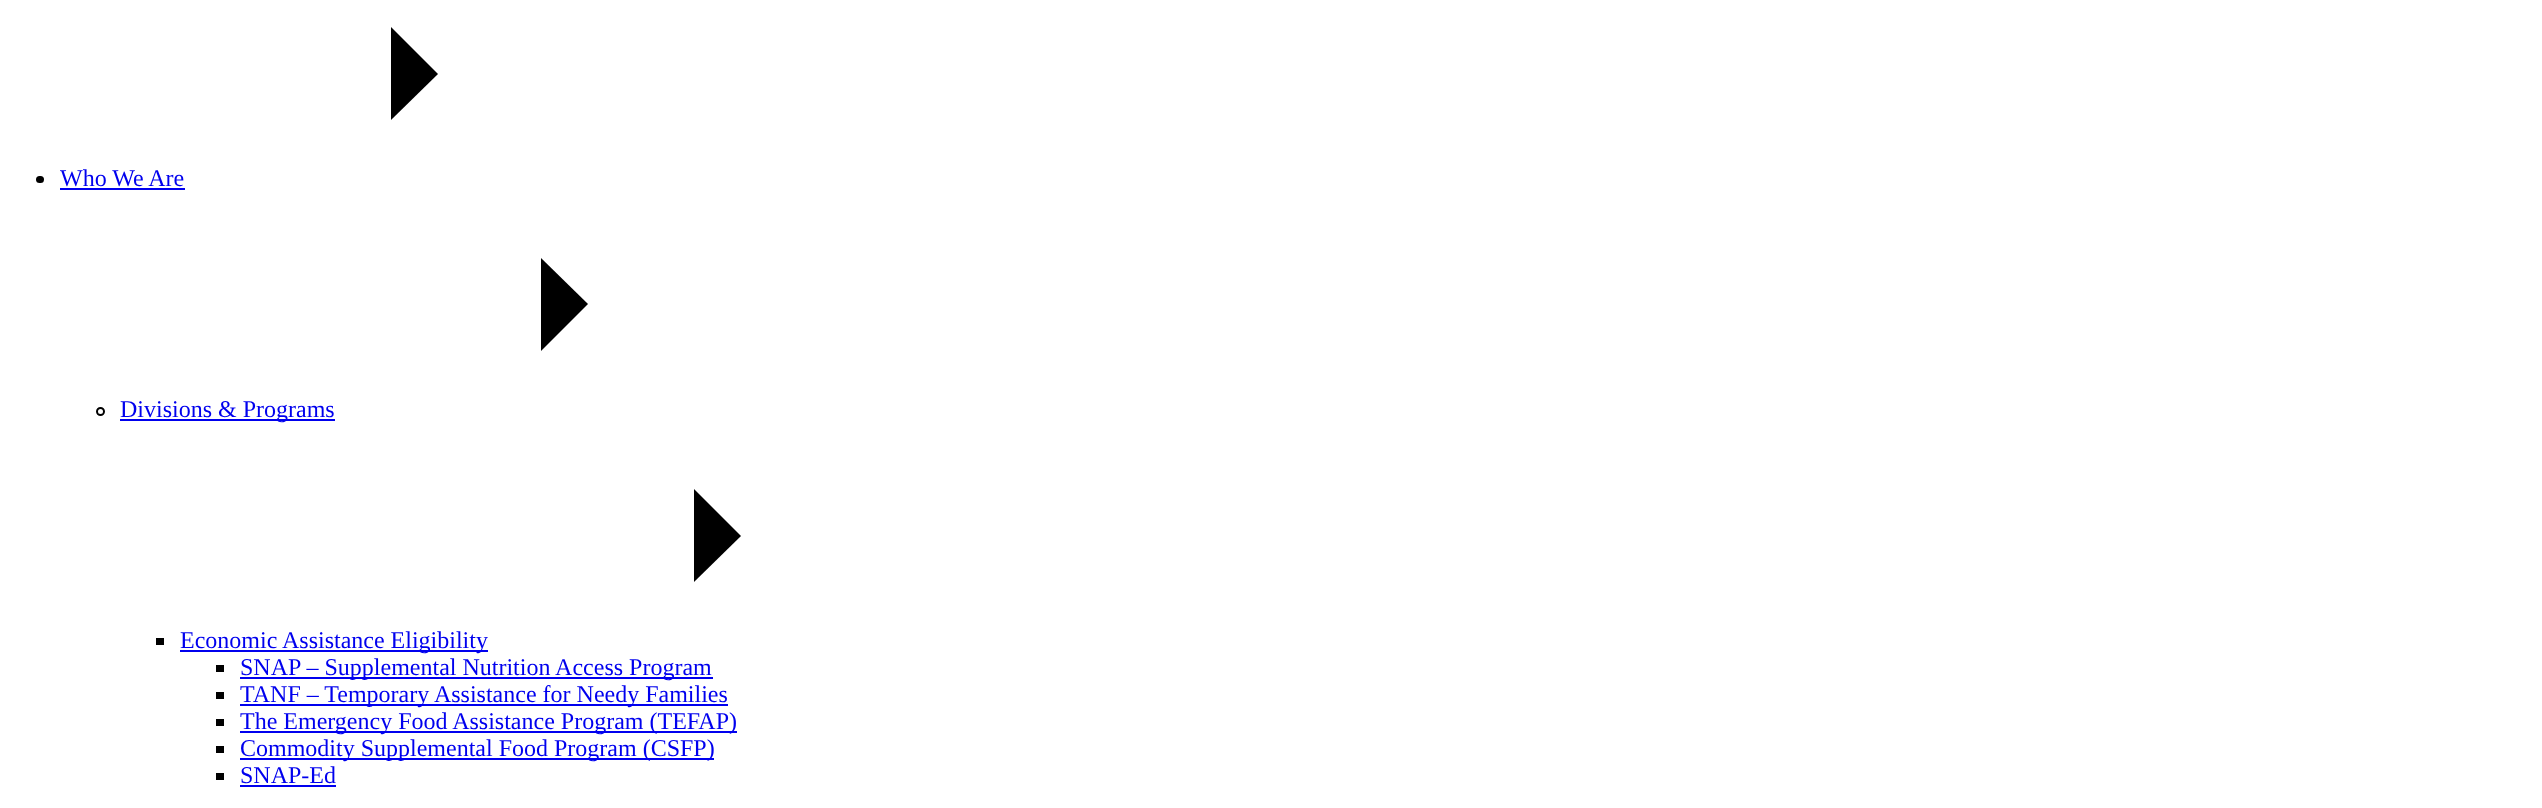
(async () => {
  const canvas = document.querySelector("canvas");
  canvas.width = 2542;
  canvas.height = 808;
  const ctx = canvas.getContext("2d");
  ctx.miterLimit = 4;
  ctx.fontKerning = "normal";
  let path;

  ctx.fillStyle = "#ffffff";
  ctx.fillRect(0, 0, 2542, 808);
  ctx.fillStyle = "#000000";
  ctx.beginPath();
  ctx.roundRect(36, 176, 8, 7, 3.5);
  ctx.fill();
  ctx.fillStyle = "#0000ee";
  ctx.fillRect(60, 188, 125, 2);
  ctx.fillStyle = "#000000";
  path = new Path2D("M391 120V27L438 74Z");
  ctx.fill(path);
  ctx.beginPath();
  ctx.arc(100.5, 411.5, 3.5, 0, Math.PI * 2);
  ctx.strokeStyle = "#000000";
  ctx.lineWidth = 2;
  ctx.stroke();
  ctx.fillStyle = "#0000ee";
  ctx.fillRect(120, 419, 215, 2);
  ctx.fillStyle = "#000000";
  path = new Path2D("M541 351V258L588 304Z");
  ctx.fill(path);
  ctx.fillRect(156, 638, 8, 7);
  ctx.fillStyle = "#0000ee";
  ctx.fillRect(180, 650, 308, 2);
  ctx.fillStyle = "#000000";
  path = new Path2D("M694 582V489L741 536Z");
  ctx.fill(path);
  for (const [x, y, w, h, color] of [
    [216, 665, 8, 7, "#000000"],
    [240, 677, 473, 2, "#0000ee"],
    [216, 692, 8, 7, "#000000"],
    [240, 704, 488, 2, "#0000ee"],
    [216, 719, 8, 7, "#000000"],
    [240, 731, 497, 2, "#0000ee"],
    [216, 746, 8, 7, "#000000"],
    [240, 758, 474, 2, "#0000ee"],
    [216, 773, 8, 7, "#000000"],
    [240, 785, 96, 2, "#0000ee"],
  ]) {
    ctx.fillStyle = color;
    ctx.fillRect(x, y, w, h);
  }
  ctx.font = "24px Liberation Serif";
  for (const [text, x, y] of [
    ["Who We Are", 60, 186],
    ["Divisions & Programs", 120, 417],
    ["Economic Assistance Eligibility", 180, 648],
    ["SNAP – Supplemental Nutrition Access Program", 240, 675],
    ["TANF – Temporary Assistance for Needy Families", 240, 702],
    ["The Emergency Food Assistance Program (TEFAP)", 240, 729],
    ["Commodity Supplemental Food Program (CSFP)", 240, 756],
    ["SNAP-Ed", 240, 783],
  ]) {
    ctx.fillText(text, x, y);
  }
})();
